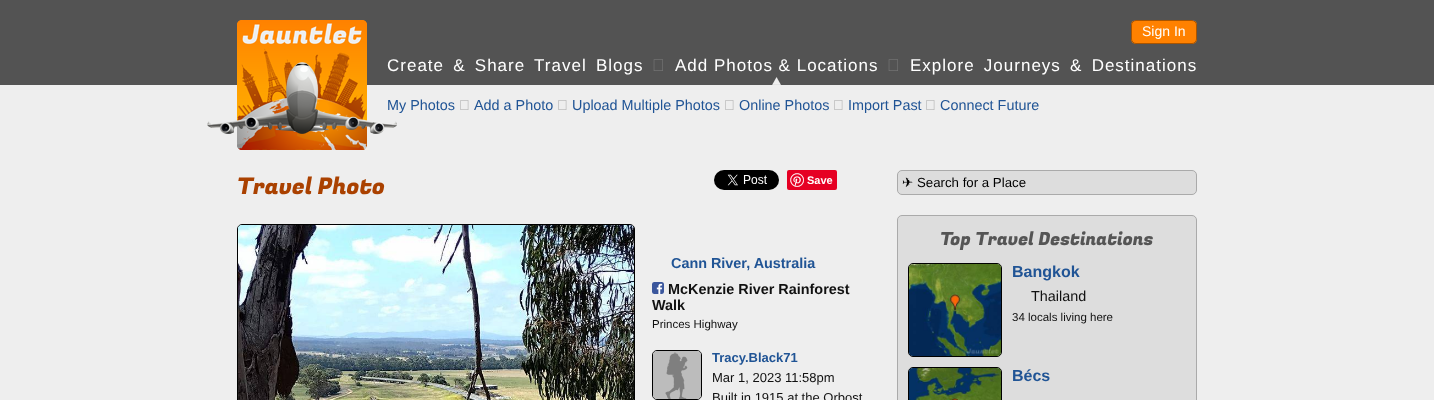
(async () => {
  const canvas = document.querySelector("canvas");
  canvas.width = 1434;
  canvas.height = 400;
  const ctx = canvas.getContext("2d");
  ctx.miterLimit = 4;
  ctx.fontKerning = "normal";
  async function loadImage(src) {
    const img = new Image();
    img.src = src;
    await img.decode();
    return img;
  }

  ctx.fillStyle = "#eeeeee";
  ctx.fillRect(0, 0, 1434, 400);
  ctx.fillStyle = "#535353";
  ctx.fillRect(0, 0, 1434, 85);
  ctx.drawImage(await loadImage("img/1.png"), 237, 20, 130, 65);
  ctx.drawImage(await loadImage("img/2.png"), 1131, 20, 66, 24);
  ctx.beginPath();
  ctx.roundRect(1131.5, 20.5, 65, 23, 4.5);
  ctx.strokeStyle = "#a85400";
  ctx.stroke();
  ctx.drawImage(await loadImage("img/3.png"), 653, 59, 10, 12);
  ctx.drawImage(await loadImage("img/4.png"), 772, 77, 9, 8);
  ctx.drawImage(await loadImage("img/3.png"), 888, 59, 10, 12);
  ctx.drawImage(await loadImage("img/5.png"), 207, 120, 190, 14);
  ctx.drawImage(await loadImage("img/6.png"), 237, 85, 130, 65);
  ctx.drawImage(await loadImage("img/7.png"), 460, 100, 9, 10);
  ctx.drawImage(await loadImage("img/7.png"), 558, 100, 9, 10);
  ctx.drawImage(await loadImage("img/7.png"), 725, 100, 9, 10);
  ctx.drawImage(await loadImage("img/7.png"), 834, 100, 9, 10);
  ctx.drawImage(await loadImage("img/7.png"), 926, 100, 9, 10);
  ctx.drawImage(await loadImage("img/8.png"), 714, 170, 65, 20);
  ctx.fillStyle = "#e60023";
  ctx.beginPath();
  ctx.roundRect(787, 170, 50, 20, 2);
  ctx.fill();
  ctx.drawImage(await loadImage("img/9.png"), 790, 173, 14, 14);
  ctx.beginPath();
  ctx.roundRect(237.5, 224.5, 397, 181, 4.5);
  ctx.strokeStyle = "#000000";
  ctx.stroke();
  ctx.drawImage(await loadImage("img/10.png"), 238, 225, 396, 175);
  ctx.drawImage(await loadImage("img/11.png"), 652, 282, 12, 12);
  ctx.beginPath();
  ctx.roundRect(652.5, 350.5, 49, 49, 4.5);
  ctx.stroke();
  ctx.drawImage(await loadImage("img/12.png"), 653, 351, 48, 48);
  ctx.fillStyle = "#dddddd";
  ctx.beginPath();
  ctx.roundRect(897.5, 170.5, 299, 24, 4.5);
  ctx.fill();
  ctx.strokeStyle = "#aaaaaa";
  ctx.stroke();
  ctx.beginPath();
  ctx.roundRect(897.5, 215.5, 299, 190, 4.5);
  ctx.fill();
  ctx.stroke();
  ctx.beginPath();
  ctx.roundRect(908.5, 263.5, 93, 93, 4.5);
  ctx.strokeStyle = "#000000";
  ctx.stroke();
  ctx.drawImage(await loadImage("img/13.png"), 909, 264, 92, 92);
  ctx.beginPath();
  ctx.roundRect(908.5, 367.5, 93, 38, 4.5);
  ctx.stroke();
  ctx.drawImage(await loadImage("img/14.png"), 909, 368, 92, 32);
  ctx.font = "14px Liberation Sans";
  ctx.fillStyle = "#ffffff";
  ctx.fillText("Sign In", 1142, 36);
  ctx.letterSpacing = "1px";
  ctx.wordSpacing = "3.5px";
  ctx.font = "17px Liberation Sans";
  ctx.fillText("Create & Share Travel Blogs", 387, 71);
  ctx.wordSpacing = "0px";
  ctx.fillText("Add Photos & Locations", 675, 71);
  ctx.wordSpacing = "3.5px";
  ctx.fillText("Explore Journeys & Destinations", 910, 71);
  ctx.letterSpacing = "0px";
  ctx.wordSpacing = "0px";
  ctx.font = "14.4px Liberation Sans";
  ctx.fillStyle = "#205495";
  for (const [text, x, y] of [
    ["My Photos", 387, 110],
    ["Add a Photo", 474, 110],
    ["Upload Multiple Photos", 572, 110],
    ["Online Photos", 739, 110],
    ["Import Past", 848, 110],
    ["Connect Future", 940, 110],
  ]) {
    ctx.fillText(text, x, y);
  }
  ctx.font = "23px Fugaz One";
  ctx.fillStyle = "#aa4100";
  ctx.fillText("Travel Photo", 237, 194);
  ctx.font = "bold 11px Liberation Sans";
  ctx.fillStyle = "#ffffff";
  ctx.fillText("Save", 807, 184);
  ctx.font = "bold 14.4px Liberation Sans";
  ctx.fillStyle = "#205495";
  ctx.fillText("Cann River, Australia", 671, 268);
  ctx.fillStyle = "#111111";
  ctx.fillText("McKenzie River Rainforest", 668, 294);
  ctx.fillText("Walk", 652, 310);
  ctx.font = "11.5px Liberation Sans";
  ctx.fillText("Princes Highway", 652, 328);
  ctx.font = "bold 13px Liberation Sans";
  ctx.fillStyle = "#205495";
  ctx.fillText("Tracy.Black71", 712, 362);
  ctx.font = "13px Liberation Sans";
  ctx.fillStyle = "#111111";
  ctx.fillText("Mar 1, 2023 11:58pm", 712, 382);
  ctx.fillText("Built in 1915 at the Orbost", 712, 402);
  ctx.font = "13.25px DejaVu Sans";
  ctx.fillStyle = "#000000";
  ctx.fillText("✈", 902, 187);
  ctx.font = "13.25px Liberation Sans";
  ctx.fillText("Search for a Place", 917, 187);
  ctx.font = "18px Fugaz One";
  ctx.fillStyle = "#555555";
  ctx.fillText("Top Travel Destinations", 940, 245);
  ctx.font = "bold 16px Liberation Sans";
  ctx.fillStyle = "#205495";
  ctx.fillText("Bangkok", 1012, 277);
  ctx.font = "14.4px Liberation Sans";
  ctx.fillStyle = "#111111";
  ctx.fillText("Thailand", 1031, 301);
  ctx.font = "11.5px Liberation Sans";
  ctx.fillText("34 locals living here", 1012, 321);
  ctx.font = "bold 16px Liberation Sans";
  ctx.fillStyle = "#205495";
  ctx.fillText("Bécs", 1012, 381);
})();
